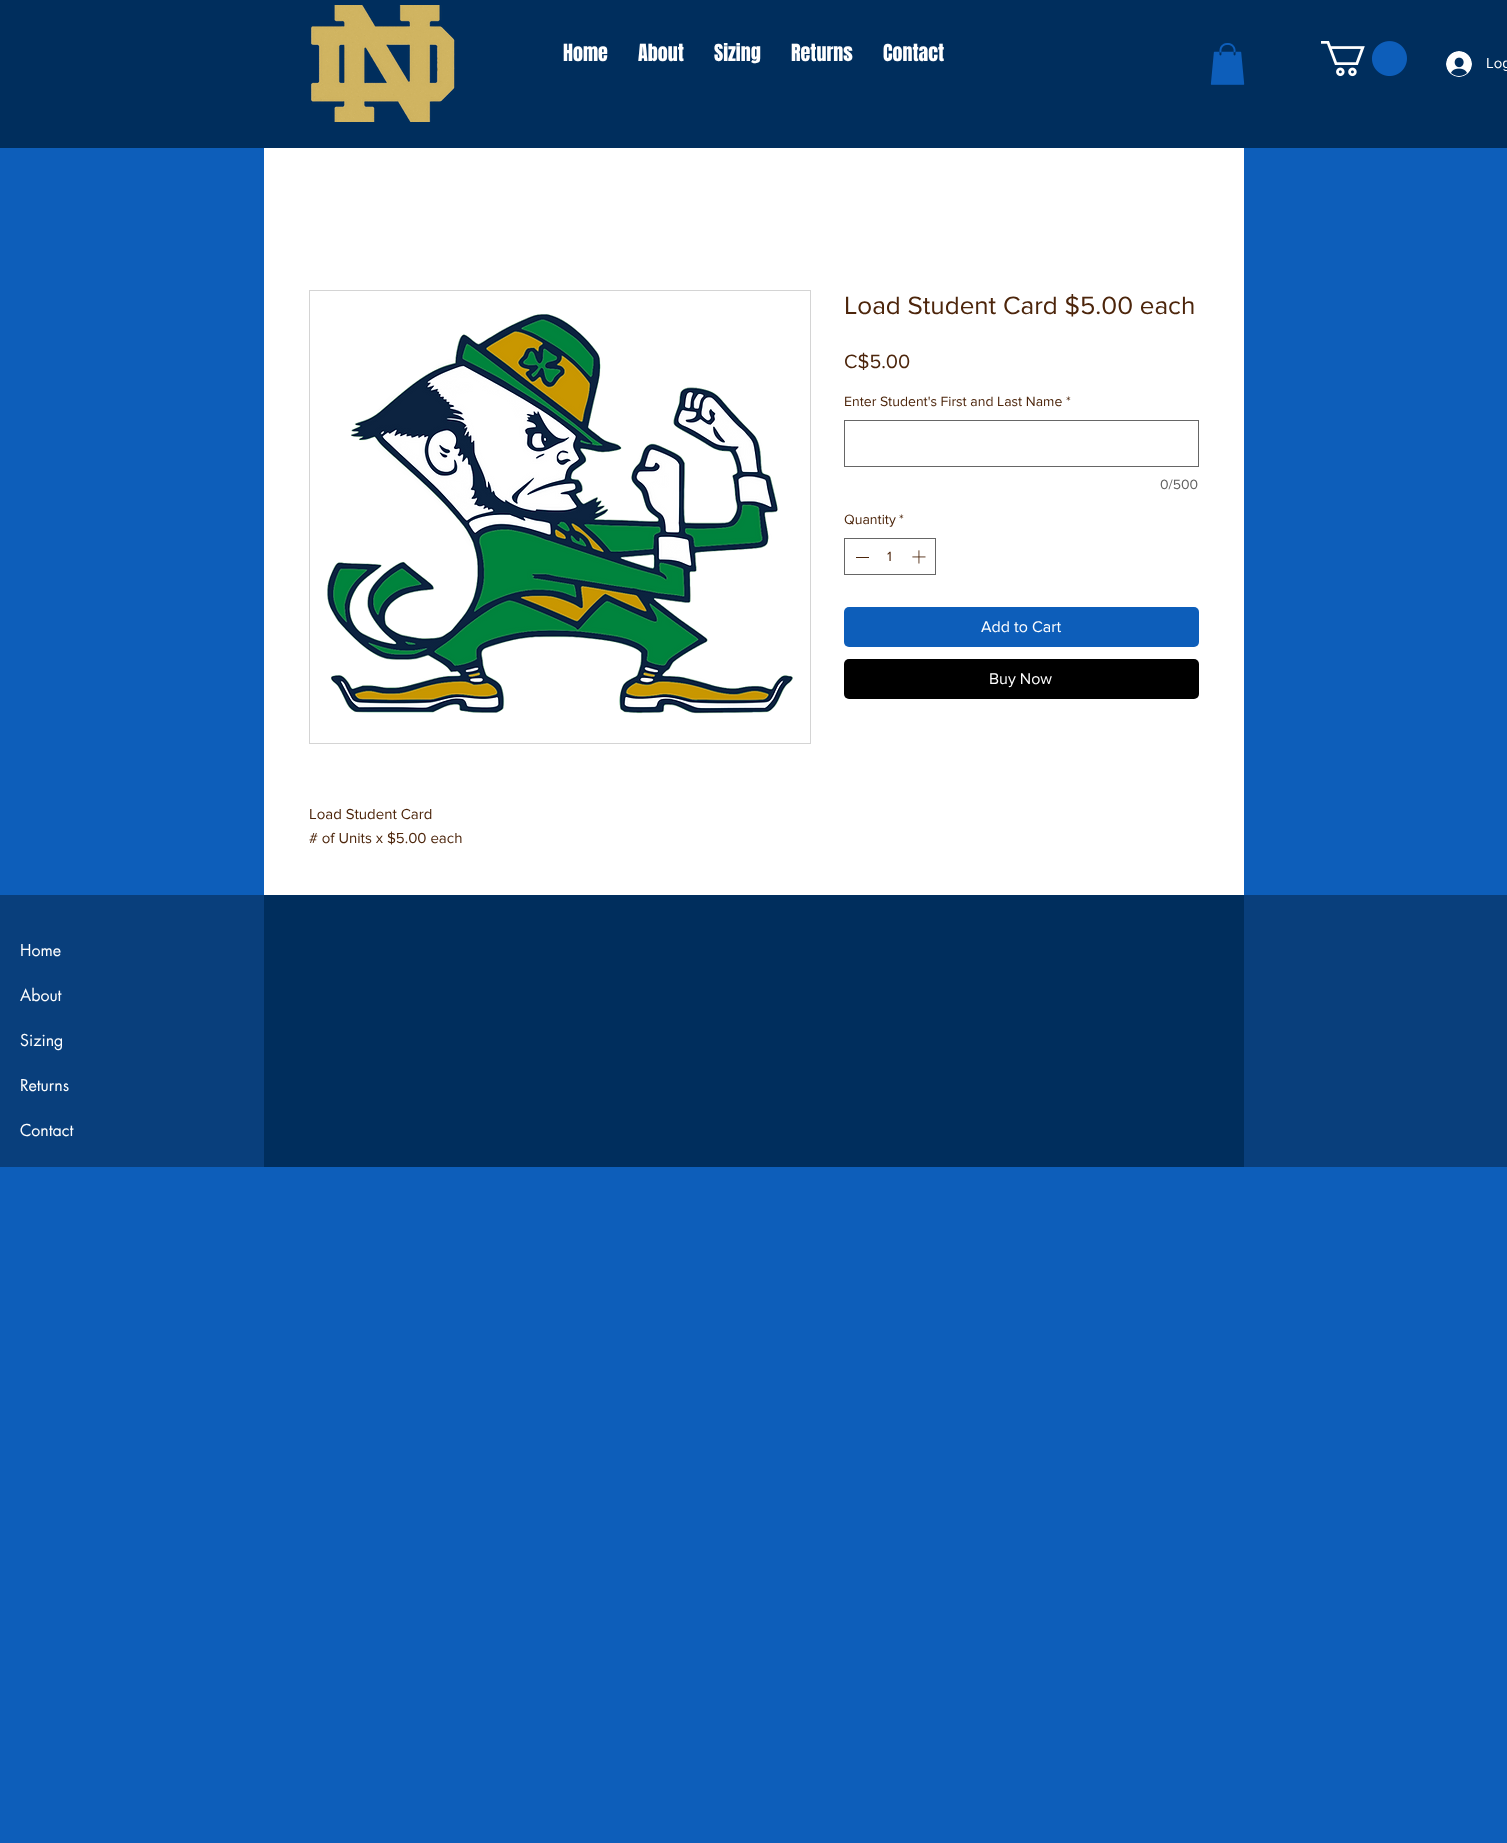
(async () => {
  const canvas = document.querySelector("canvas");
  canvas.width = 1507;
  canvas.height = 1843;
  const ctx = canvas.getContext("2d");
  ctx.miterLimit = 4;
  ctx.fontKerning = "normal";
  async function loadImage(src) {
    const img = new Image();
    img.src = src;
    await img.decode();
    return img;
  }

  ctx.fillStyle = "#0d5eba";
  ctx.fillRect(0, 0, 1507, 1843);
  ctx.fillStyle = "#002e5d";
  ctx.fillRect(0, 0, 1507, 148);
  ctx.drawImage(await loadImage("img/1.png"), 311, 5, 144, 117);
  ctx.drawImage(await loadImage("img/2.png"), 1210, 43, 35, 42);
  ctx.drawImage(await loadImage("img/3.png"), 1321, 41, 86, 36);
  ctx.drawImage(await loadImage("img/4.png"), 1446, 51, 26, 26);
  ctx.fillStyle = "#ffffff";
  ctx.fillRect(264, 148, 980, 747);
  ctx.strokeStyle = "#666666";
  ctx.strokeRect(844.5, 420.5, 354, 46);
  ctx.strokeRect(844.5, 538.5, 91, 36);
  ctx.fillStyle = "#4c250b";
  ctx.fillRect(856, 557, 13, 1);
  ctx.drawImage(await loadImage("img/5.png"), 912, 550, 14, 14);
  ctx.fillStyle = "#0d5eba";
  ctx.beginPath();
  ctx.roundRect(844, 607, 355, 40, 5);
  ctx.fill();
  ctx.fillStyle = "#000000";
  ctx.beginPath();
  ctx.roundRect(844, 659, 355, 40, 5);
  ctx.fill();
  ctx.strokeStyle = "#d4d4d4";
  ctx.strokeRect(309.5, 290.5, 501, 453);
  ctx.drawImage(await loadImage("img/6.png"), 327, 314, 466, 400);
  ctx.fillStyle = "#093f7c";
  ctx.fillRect(0, 895, 1507, 272);
  ctx.fillStyle = "#002e5d";
  ctx.fillRect(264, 895, 980, 272);
  ctx.font = "20px Anton";
  ctx.fillStyle = "#ffffff";
  for (const [text, x, y] of [
    ["Home", 563, 61],
    ["About", 638, 61],
    ["Sizing", 714, 61],
    ["Returns", 791, 61],
    ["Contact", 883, 61],
  ]) {
    ctx.fillText(text, x, y);
  }
  ctx.font = "15px 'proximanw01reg'";
  ctx.fillText("Log", 1486, 68);
  ctx.font = "26px 'proximanw01reg'";
  ctx.fillStyle = "#4c250b";
  ctx.fillText("Load Student Card $5.00 each", 844, 314);
  ctx.font = "20px 'proximanw01reg'";
  ctx.fillText("C$5.00", 844, 368);
  ctx.font = "14px 'proximanw01reg'";
  ctx.fillText("Enter Student's First and Last Name", 844, 406);
  ctx.fillText("*", 1066, 406);
  ctx.fillStyle = "#606060";
  ctx.fillText("0/500", 1160, 489);
  ctx.fillStyle = "#4c250b";
  for (const [text, x, y] of [
    ["Quantity", 844, 524],
    ["*", 899, 524],
    ["1", 887, 561],
  ]) {
    ctx.fillText(text, x, y);
  }
  ctx.font = "16px 'proximanw01reg'";
  ctx.fillStyle = "#ffffff";
  ctx.fillText("Add to Cart", 981, 632);
  ctx.fillText("Buy Now", 989, 684);
  ctx.font = "15px 'proximanw01reg'";
  ctx.fillStyle = "#4c250b";
  ctx.fillText("Load Student Card", 309, 819);
  ctx.fillText("# of Units x $5.00 each", 309, 843);
  ctx.font = "16px futura";
  ctx.fillStyle = "#ffffff";
  for (const [text, x, y] of [
    ["Home", 20, 956],
    ["About", 20, 1001],
    ["Sizing", 20, 1046],
    ["Returns", 20, 1091],
    ["Contact", 20, 1136],
  ]) {
    ctx.fillText(text, x, y);
  }
})();
